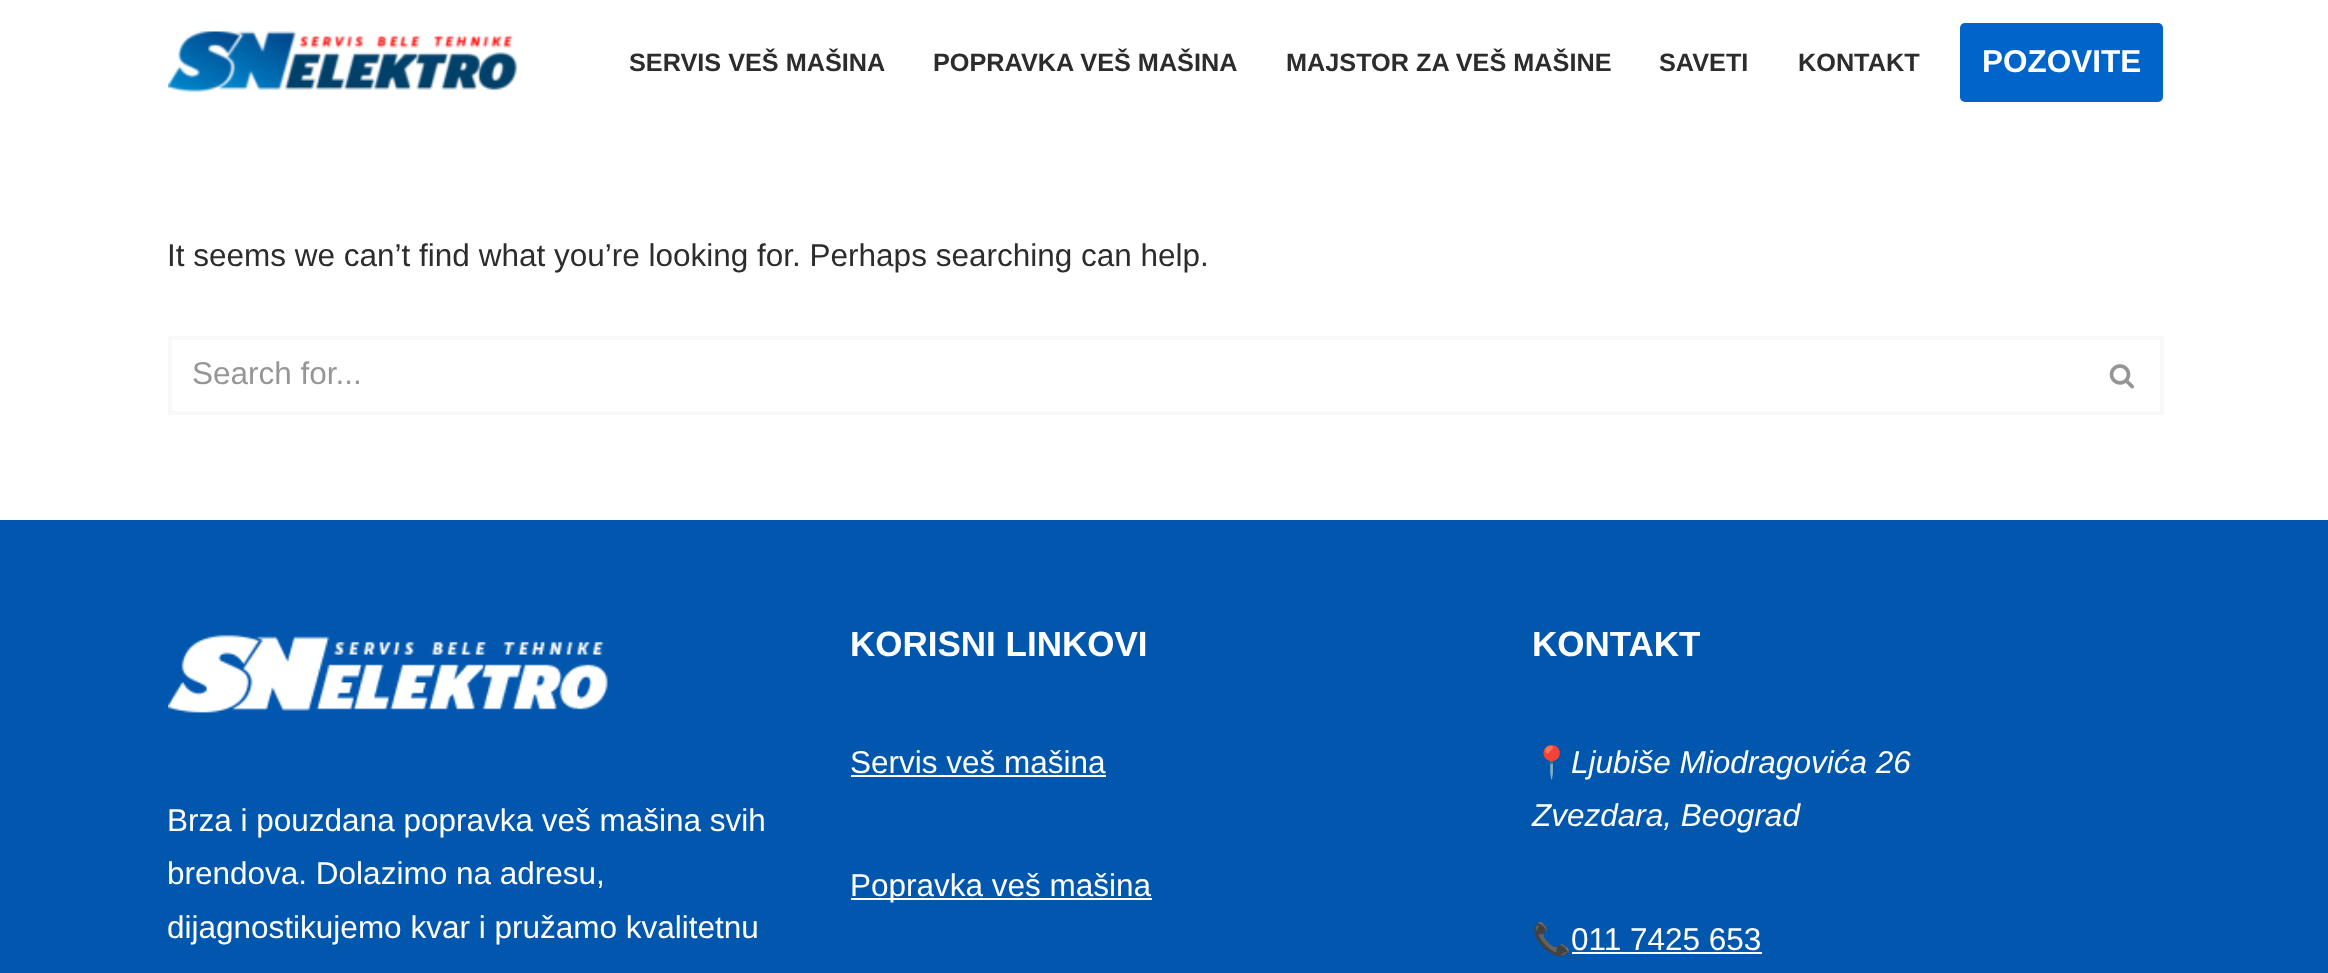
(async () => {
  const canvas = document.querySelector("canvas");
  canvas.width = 2328;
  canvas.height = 973;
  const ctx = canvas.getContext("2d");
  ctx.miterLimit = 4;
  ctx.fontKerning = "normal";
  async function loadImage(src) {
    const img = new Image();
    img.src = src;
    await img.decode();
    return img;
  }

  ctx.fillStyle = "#ffffff";
  ctx.fillRect(0, 0, 2328, 973);
  ctx.drawImage(await loadImage("img/1.png"), 168, 31, 350, 62);
  ctx.fillStyle = "#0065cb";
  ctx.beginPath();
  ctx.roundRect(1960, 23, 203, 79, 5);
  ctx.fill();
  for (const [x, y, w, h, color] of [
    [168, 336, 1995, 4, "#f8f8f8"],
    [168, 411, 1916, 4, "#f8f8f8"],
    [168, 336, 4, 79, "#f8f8f8"],
    [2160, 336, 4, 79, "#f8f8f8"],
    [2084, 411, 79, 4, "#f8f8f8"],
  ]) {
    ctx.fillStyle = color;
    ctx.fillRect(x, y, w, h);
  }
  ctx.drawImage(await loadImage("img/2.png"), 2109, 364, 25, 25);
  ctx.fillStyle = "#0157ae";
  ctx.fillRect(0, 520, 2328, 453);
  ctx.drawImage(await loadImage("img/3.png"), 168, 634, 440, 79);
  for (const [x, y, w, h, color] of [
    [851, 775, 255, 2, "#ffffff"],
    [851, 898, 301, 2, "#ffffff"],
    [1572, 952, 190, 2, "#ffffff"],
  ]) {
    ctx.fillStyle = color;
    ctx.fillRect(x, y, w, h);
  }
  ctx.font = "bold 25.25px Liberation Sans";
  ctx.fillStyle = "#2c2c2c";
  for (const [text, x, y] of [
    ["SERVIS VEŠ MAŠINA", 629, 71],
    ["POPRAVKA VEŠ MAŠINA", 933, 71],
    ["MAJSTOR ZA VEŠ MAŠINE", 1286, 71],
    ["SAVETI", 1659, 71],
    ["KONTAKT", 1798, 71],
  ]) {
    ctx.fillText(text, x, y);
  }
  ctx.font = "bold 31.5px Liberation Sans";
  ctx.fillStyle = "#ffffff";
  ctx.fillText("POZOVITE", 1982, 72);
  ctx.font = "31.5px Liberation Sans";
  ctx.fillStyle = "#2c2c2c";
  ctx.fillText("It seems we can’t find what you’re looking for. Perhaps searching can help.", 167, 266);
  ctx.fillStyle = "#969696";
  ctx.fillText("Search for...", 192, 384);
  ctx.fillStyle = "#ffffff";
  for (const [text, x, y] of [
    ["Brza i pouzdana popravka veš mašina svih", 167, 831],
    ["brendova. Dolazimo na adresu,", 167, 884],
    ["dijagnostikujemo kvar i pružamo kvalitetnu", 167, 938],
  ]) {
    ctx.fillText(text, x, y);
  }
  ctx.font = "bold 35px Liberation Sans";
  ctx.fillText("KORISNI LINKOVI", 850, 656);
  ctx.font = "31.5px Liberation Sans";
  ctx.fillText("Servis veš mašina", 850, 773);
  ctx.fillText("Popravka veš mašina", 850, 896);
  ctx.font = "bold 35px Liberation Sans";
  ctx.fillText("KONTAKT", 1532, 656);
  ctx.font = "31.5px Noto Color Emoji";
  ctx.fillText("📍", 1532, 773);
  ctx.font = "italic 31.5px Liberation Sans";
  ctx.fillText("Ljubiše Miodragovića 26", 1571, 773);
  ctx.fillText("Zvezdara, Beograd", 1532, 826);
  ctx.font = "31.5px Noto Color Emoji";
  ctx.fillText("📞", 1532, 950);
  ctx.font = "31.5px Liberation Sans";
  ctx.fillText("011 7425 653", 1571, 950);
})();
